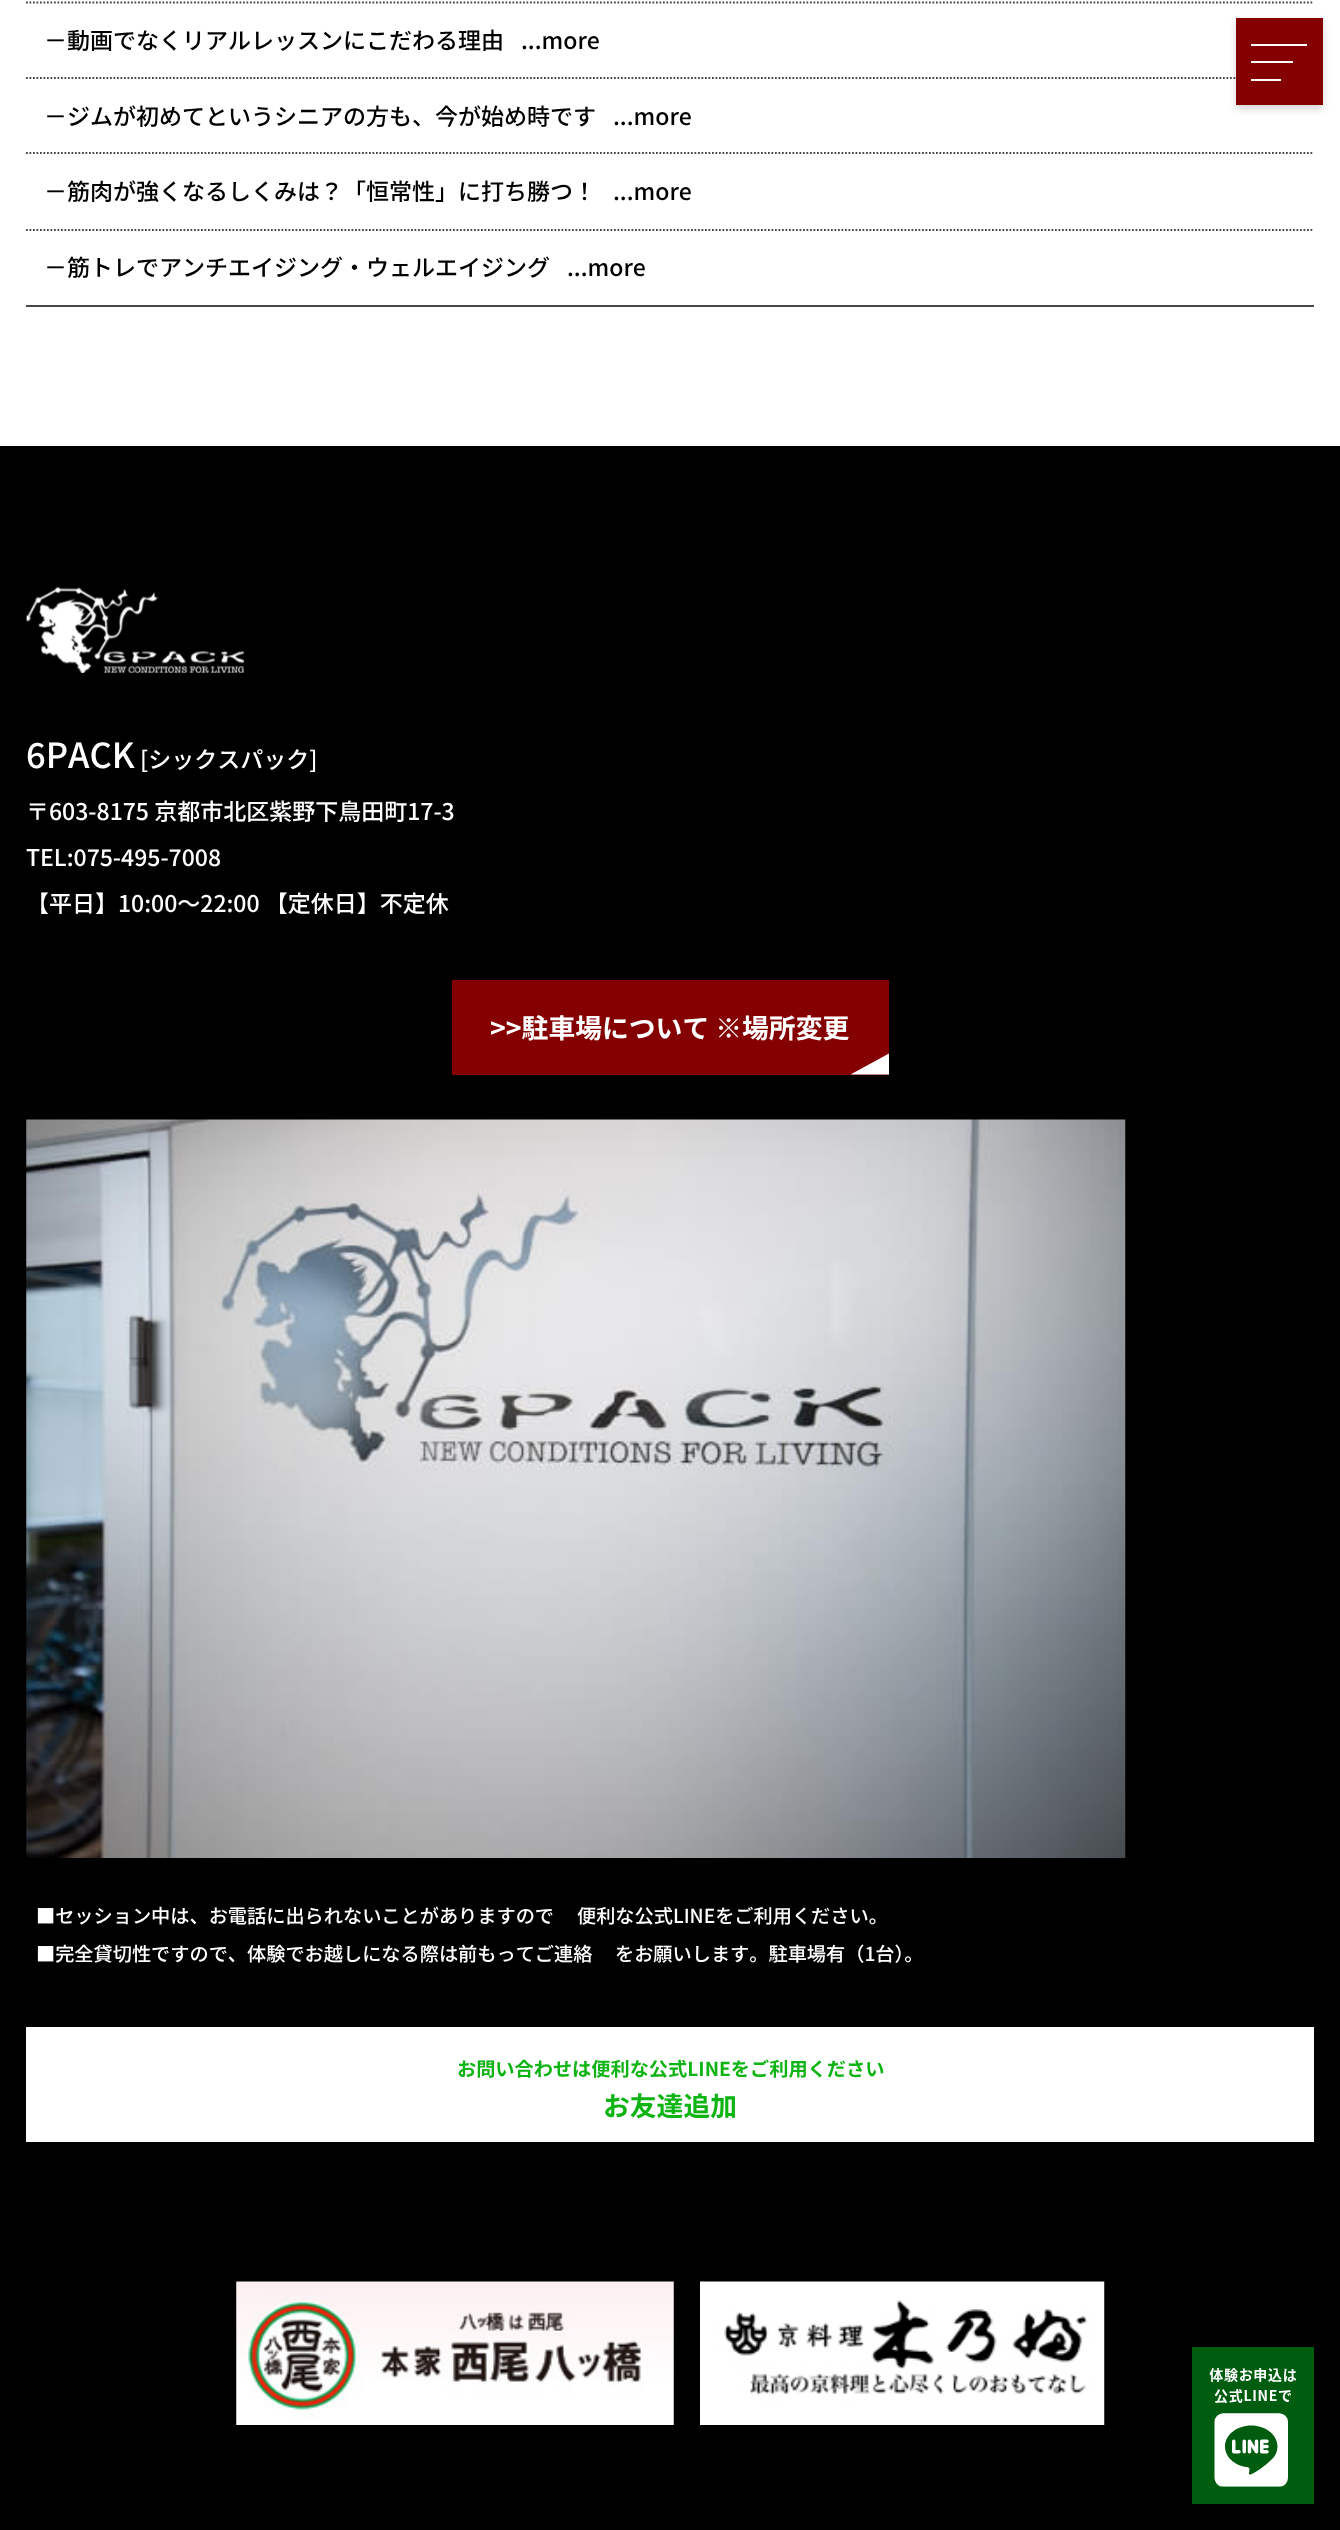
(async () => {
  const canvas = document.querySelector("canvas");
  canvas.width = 1340;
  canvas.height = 2530;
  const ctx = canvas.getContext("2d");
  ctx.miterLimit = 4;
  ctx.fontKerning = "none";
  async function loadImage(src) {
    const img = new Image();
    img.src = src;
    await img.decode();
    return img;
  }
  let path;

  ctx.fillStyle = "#ffffff";
  ctx.fillRect(0, 0, 1340, 2530);
  ctx.fillStyle = "#464646";
  ctx.fillRect(26, 305, 1288, 2);
  path = new Path2D("M26 2.5H1314");
  ctx.strokeStyle = "#464646";
  ctx.lineWidth = 1.8;
  ctx.setLineDash([1.75, 1.75]);
  ctx.stroke(path);
  path = new Path2D("M26 78H1314");
  ctx.stroke(path);
  path = new Path2D("M26 153H1314");
  ctx.stroke(path);
  path = new Path2D("M26 230H1314");
  ctx.stroke(path);
  ctx.fillStyle = "rgba(0, 0, 0, 0.16)";
  ctx.filter = "blur(3.5px)";
  ctx.beginPath();
  ctx.rect(1236, 21, 87, 88);
  ctx.fill();
  ctx.filter = "none";
  for (const [x, y, w, h, color] of [
    [1236, 18, 87, 87, "#850000"],
    [1251, 44, 56, 2, "#ffffff"],
    [1251, 61, 42, 2, "#ffffff"],
    [1251, 79, 30, 2, "#ffffff"],
    [0, 446, 1340, 2084, "#000000"],
  ]) {
    ctx.fillStyle = color;
    ctx.fillRect(x, y, w, h);
  }
  ctx.drawImage(await loadImage("img/1.png"), 26, 586, 219, 87);
  ctx.fillStyle = "#850000";
  ctx.fillRect(452, 980, 437, 95);
  ctx.fillStyle = "#ffffff";
  path = new Path2D("M850.5 1074.5L889 1053.5V1074.5Z");
  ctx.fill(path);
  ctx.drawImage(await loadImage("img/2.png"), 26, 1119, 1100, 739);
  ctx.fillRect(26, 2027, 1288, 115);
  ctx.drawImage(await loadImage("img/3.png"), 236, 2281, 438, 144);
  ctx.drawImage(await loadImage("img/4.png"), 700, 2281, 405, 144);
  ctx.fillStyle = "#005d0f";
  ctx.fillRect(1192, 2347, 122, 157);
  ctx.drawImage(await loadImage("img/5.png"), 1209, 2368, 88, 119);
  ctx.font = "500 23px Noto Sans JP";
  ctx.fillStyle = "#000000";
  for (const [text, x, y] of [
    ["－動画でなくリアルレッスンにこだわる理由", 44, 49],
    ["...more", 521, 49],
    ["－ジムが初めてというシニアの方も、今が始め時です", 44, 125],
    ["...more", 613, 125],
    ["－筋肉が強くなるしくみは？「恒常性」に打ち勝つ！", 44, 200],
    ["...more", 613, 200],
    ["－筋トレでアンチエイジング・ウェルエイジング", 44, 276],
    ["...more", 567, 276],
  ]) {
    ctx.fillText(text, x, y);
  }
  ctx.font = "500 34.5px Noto Sans JP";
  ctx.fillStyle = "#ffffff";
  ctx.fillText("6PACK", 26, 768);
  ctx.font = "500 23px Noto Sans JP";
  for (const [text, x, y] of [
    ["[シックスパック]", 140, 768],
    ["〒603-8175 京都市北区紫野下鳥田町17-3", 26, 820],
    ["TEL:075-495-7008", 26, 866],
    ["【平日】10:00〜22:00 【定休日】不定休", 26, 912],
  ]) {
    ctx.fillText(text, x, y);
  }
  ctx.font = "bold 26.8px Noto Sans JP";
  ctx.fillText(">>駐車場について ※場所変更", 490, 1038);
  ctx.font = "500 19.2px Noto Sans JP";
  for (const [text, x, y] of [
    ["■セッション中は、お電話に出られないことがありますので", 36, 1923],
    ["便利な公式LINEをご利用ください。", 577, 1923],
    ["■完全貸切性ですので、体験でお越しになる際は前もってご連絡", 36, 1961],
    ["をお願いします。駐車場有（1台）。", 615, 1961],
  ]) {
    ctx.fillText(text, x, y);
  }
  ctx.font = "bold 19.2px Noto Sans JP";
  ctx.fillStyle = "#0eb414";
  ctx.fillText("お問い合わせは便利な公式LINEをご利用ください", 457, 2076);
  ctx.font = "bold 26.8px Noto Sans JP";
  ctx.fillText("お友達追加", 603, 2116);
})();
